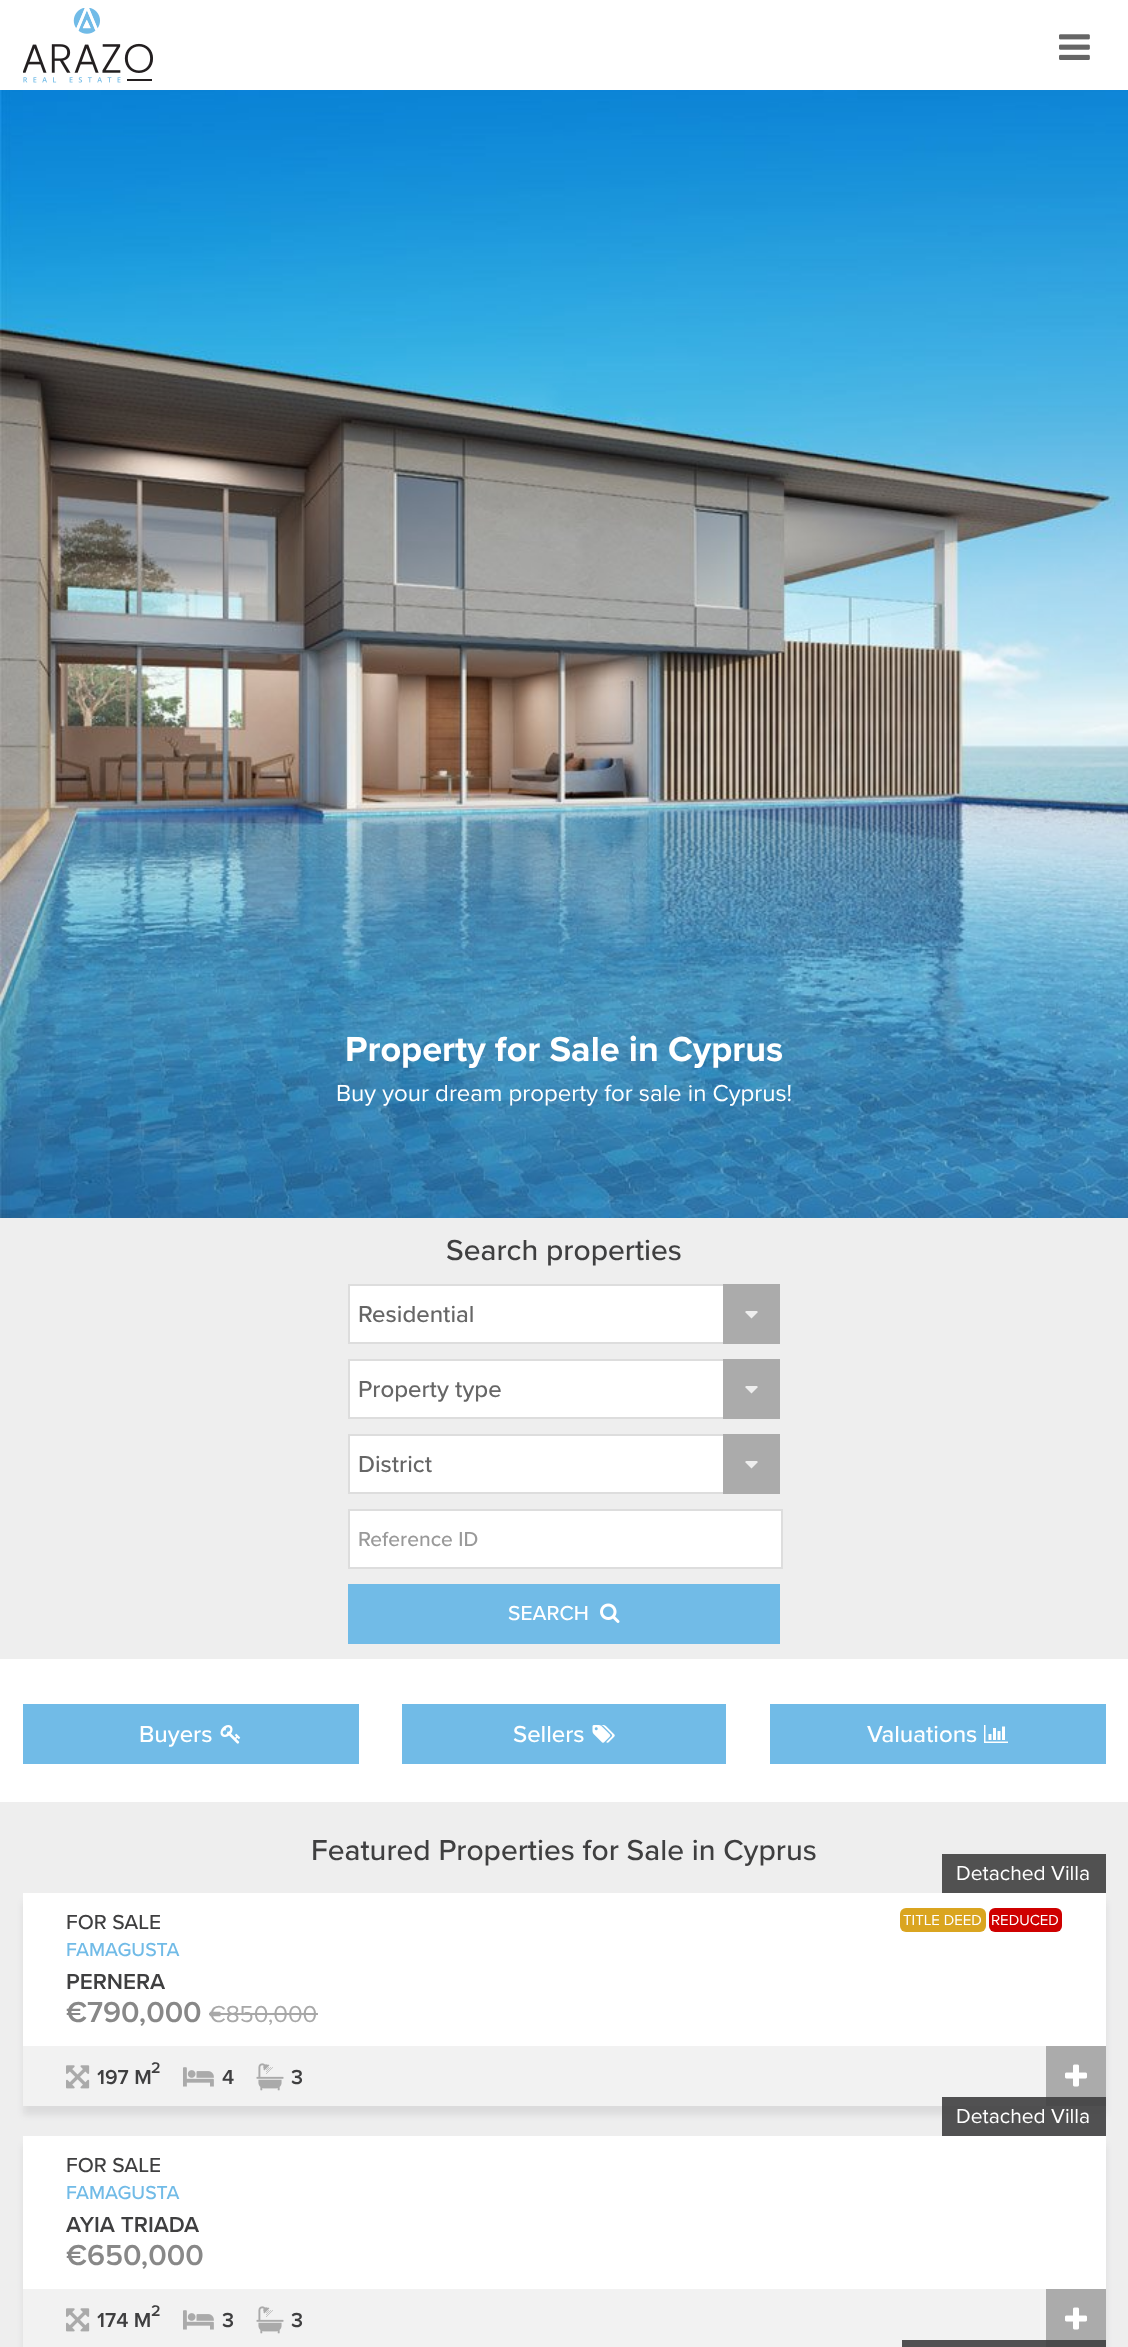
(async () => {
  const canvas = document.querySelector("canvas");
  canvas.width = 1128;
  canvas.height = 2347;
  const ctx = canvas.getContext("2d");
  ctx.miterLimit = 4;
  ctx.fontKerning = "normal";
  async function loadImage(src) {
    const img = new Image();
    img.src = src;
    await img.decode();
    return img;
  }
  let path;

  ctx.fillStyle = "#ffffff";
  ctx.fillRect(0, 0, 1128, 2347);
  ctx.drawImage(await loadImage("img/1.png"), 23, 8, 130, 75);
  ctx.drawImage(await loadImage("img/2.png"), 1059, 34, 31, 26);
  ctx.drawImage(await loadImage("img/3.png"), 0, 90, 1128, 1128);
  ctx.fillStyle = "#eeeeee";
  ctx.fillRect(0, 1218, 1128, 441);
  ctx.fillStyle = "#ffffff";
  ctx.fillRect(350, 1286, 373, 56);
  ctx.strokeStyle = "#dddddd";
  ctx.lineWidth = 2;
  ctx.strokeRect(349, 1285, 430, 58);
  ctx.fillStyle = "#ababab";
  ctx.fillRect(723, 1284, 57, 60);
  ctx.fillStyle = "#eeeeee";
  path = new Path2D("M747 1311C746 1311 745.5 1311.5 745 1312L751.5 1318.5L758 1312C757.5 1311.5 757 1311 756 1311Z");
  ctx.fill(path);
  ctx.fillStyle = "#ffffff";
  ctx.fillRect(350, 1361, 373, 56);
  ctx.strokeRect(349, 1360, 430, 58);
  ctx.fillStyle = "#ababab";
  ctx.fillRect(723, 1359, 57, 60);
  ctx.fillStyle = "#eeeeee";
  path = new Path2D("M747 1386C746 1386 745.5 1386.5 745 1387L751.5 1393.5L758 1387C757.5 1386.5 757 1386 756 1386Z");
  ctx.fill(path);
  ctx.fillStyle = "#ffffff";
  ctx.fillRect(350, 1436, 373, 56);
  ctx.strokeRect(349, 1435, 430, 58);
  ctx.fillStyle = "#ababab";
  ctx.fillRect(723, 1434, 57, 60);
  ctx.fillStyle = "#eeeeee";
  path = new Path2D("M747 1461C746 1461 745.5 1461.5 745 1462L751.5 1468.5L758 1462C757.5 1461.5 757 1461 756 1461Z");
  ctx.fill(path);
  ctx.fillStyle = "#ffffff";
  ctx.beginPath();
  ctx.rect(349, 1510, 433, 58);
  ctx.fill();
  ctx.stroke();
  ctx.fillStyle = "#71bbe7";
  ctx.fillRect(348, 1584, 432, 60);
  ctx.drawImage(await loadImage("img/4.png"), 600, 1603, 20, 20);
  ctx.fillRect(23, 1704, 336, 60);
  ctx.drawImage(await loadImage("img/5.png"), 220, 1725, 21, 19);
  ctx.fillRect(402, 1704, 324, 60);
  ctx.drawImage(await loadImage("img/6.png"), 592, 1725, 23, 18);
  ctx.fillRect(770, 1704, 336, 60);
  ctx.drawImage(await loadImage("img/7.png"), 984, 1725, 24, 18);
  ctx.fillStyle = "#eeeeee";
  ctx.fillRect(0, 1802, 1128, 545);
  ctx.fillStyle = "rgba(63, 63, 64, 0.1)";
  ctx.filter = "blur(3px)";
  ctx.beginPath();
  ctx.rect(23, 1902, 1083, 213);
  ctx.fill();
  ctx.filter = "none";
  ctx.fillStyle = "#515151";
  ctx.fillRect(942, 1854, 164, 39);
  ctx.fillStyle = "#ffffff";
  ctx.fillRect(23, 1893, 1083, 153);
  ctx.fillStyle = "#daa520";
  ctx.beginPath();
  ctx.roundRect(900, 1908, 86, 24, 6);
  ctx.fill();
  ctx.fillStyle = "#cf0000";
  ctx.beginPath();
  ctx.roundRect(989, 1908, 73, 24, 6);
  ctx.fill();
  ctx.fillStyle = "#a8a8a8";
  ctx.fillRect(209, 2013, 109, 2);
  ctx.fillStyle = "#f2f2f2";
  ctx.fillRect(23, 2046, 1023, 60);
  ctx.drawImage(await loadImage("img/8.png"), 66, 2065, 24, 24);
  ctx.drawImage(await loadImage("img/9.png"), 183, 2067, 31, 20);
  ctx.drawImage(await loadImage("img/10.png"), 256, 2063, 28, 28);
  ctx.fillStyle = "#ababab";
  ctx.fillRect(1046, 2046, 60, 60);
  ctx.drawImage(await loadImage("img/11.png"), 1065, 2064, 22, 23);
  ctx.fillStyle = "rgba(63, 63, 64, 0.1)";
  ctx.filter = "blur(3px)";
  ctx.beginPath();
  ctx.rect(23, 2145, 1083, 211);
  ctx.fill();
  ctx.filter = "none";
  for (const [x, y, w, h, color] of [
    [942, 2097, 164, 39, "rgba(63, 63, 64, 0.9)"],
    [23, 2136, 1083, 153, "#ffffff"],
    [23, 2289, 1023, 58, "#f2f2f2"],
  ]) {
    ctx.fillStyle = color;
    ctx.fillRect(x, y, w, h);
  }
  ctx.drawImage(await loadImage("img/8.png"), 66, 2308, 24, 24);
  ctx.drawImage(await loadImage("img/9.png"), 183, 2310, 31, 20);
  ctx.drawImage(await loadImage("img/10.png"), 256, 2306, 28, 28);
  ctx.fillStyle = "#ababab";
  ctx.fillRect(1046, 2289, 60, 58);
  ctx.drawImage(await loadImage("img/11.png"), 1065, 2307, 22, 23);
  ctx.fillStyle = "rgba(63, 63, 64, 0.9)";
  ctx.fillRect(902, 2340, 204, 7);
  ctx.font = "bold 36px Proxima Nova";
  ctx.fillStyle = "#ffffff";
  ctx.fillText("Property for Sale in Cyprus", 345, 1061);
  ctx.font = "24px Proxima Nova";
  ctx.fillText("Buy your dream property for sale in Cyprus!", 336, 1101);
  ctx.font = "500 30px Proxima Nova";
  ctx.fillStyle = "#3f3f40";
  ctx.fillText("Search properties", 446, 1260);
  ctx.font = "500 24px Proxima Nova";
  ctx.fillStyle = "#666666";
  for (const [text, x, y] of [
    ["Residential", 358, 1322],
    ["Property type", 358, 1397],
    ["District", 358, 1472],
  ]) {
    ctx.fillText(text, x, y);
  }
  ctx.font = "500 21px Proxima Nova";
  ctx.fillStyle = "#999999";
  ctx.fillText("Reference ID", 358, 1546);
  ctx.fillStyle = "#ffffff";
  ctx.fillText("SEARCH", 508, 1620);
  ctx.font = "500 24px Proxima Nova";
  for (const [text, x, y] of [
    ["Buyers", 139, 1742],
    ["Sellers", 513, 1742],
    ["Valuations", 867, 1742],
  ]) {
    ctx.fillText(text, x, y);
  }
  ctx.font = "500 30px Proxima Nova";
  ctx.fillStyle = "#3f3f40";
  ctx.fillText("Featured Properties for Sale in Cyprus", 311, 1860);
  ctx.font = "21px Proxima Nova";
  ctx.fillStyle = "#ffffff";
  ctx.fillText("Detached Villa", 956, 1880);
  ctx.font = "500 21px Proxima Nova";
  ctx.fillStyle = "#3f3f40";
  ctx.fillText("FOR SALE", 66, 1929);
  ctx.font = "15px Proxima Nova";
  ctx.fillStyle = "#ffffff";
  ctx.fillText("TITLE DEED", 903, 1925);
  ctx.fillText("REDUCED", 991, 1925);
  ctx.font = "500 19.5px Proxima Nova";
  ctx.fillStyle = "#71bbe7";
  ctx.fillText("FAMAGUSTA", 66, 1956);
  ctx.font = "600 22.5px Proxima Nova";
  ctx.fillStyle = "#3f3f40";
  ctx.fillText("PERNERA", 66, 1989);
  ctx.font = "600 30px Proxima Nova";
  ctx.fillStyle = "#888888";
  ctx.fillText("€790,000", 66, 2022);
  ctx.font = "24px Proxima Nova";
  ctx.fillStyle = "#a8a8a8";
  ctx.fillText("€850,000", 209, 2022);
  ctx.font = "600 21px Proxima Nova";
  ctx.fillStyle = "#3f3f40";
  ctx.fillText("197 M", 97, 2084);
  ctx.font = "600 16px Proxima Nova";
  ctx.fillText("2", 151, 2073);
  ctx.font = "600 21px Proxima Nova";
  ctx.fillText("4", 222, 2084);
  ctx.fillText("3", 291, 2084);
  ctx.font = "21px Proxima Nova";
  ctx.fillStyle = "#ffffff";
  ctx.fillText("Detached Villa", 956, 2123);
  ctx.font = "500 21px Proxima Nova";
  ctx.fillStyle = "#3f3f40";
  ctx.fillText("FOR SALE", 66, 2172);
  ctx.font = "500 19.5px Proxima Nova";
  ctx.fillStyle = "#71bbe7";
  ctx.fillText("FAMAGUSTA", 66, 2199);
  ctx.font = "600 22.5px Proxima Nova";
  ctx.fillStyle = "#3f3f40";
  ctx.fillText("AYIA TRIADA", 66, 2232);
  ctx.font = "600 30px Proxima Nova";
  ctx.fillStyle = "#888888";
  ctx.fillText("€650,000", 66, 2265);
  ctx.font = "600 21px Proxima Nova";
  ctx.fillStyle = "#3f3f40";
  ctx.fillText("174 M", 97, 2327);
  ctx.font = "600 16px Proxima Nova";
  ctx.fillText("2", 151, 2316);
  ctx.font = "600 21px Proxima Nova";
  ctx.fillText("3", 222, 2327);
  ctx.fillText("3", 291, 2327);
})();
